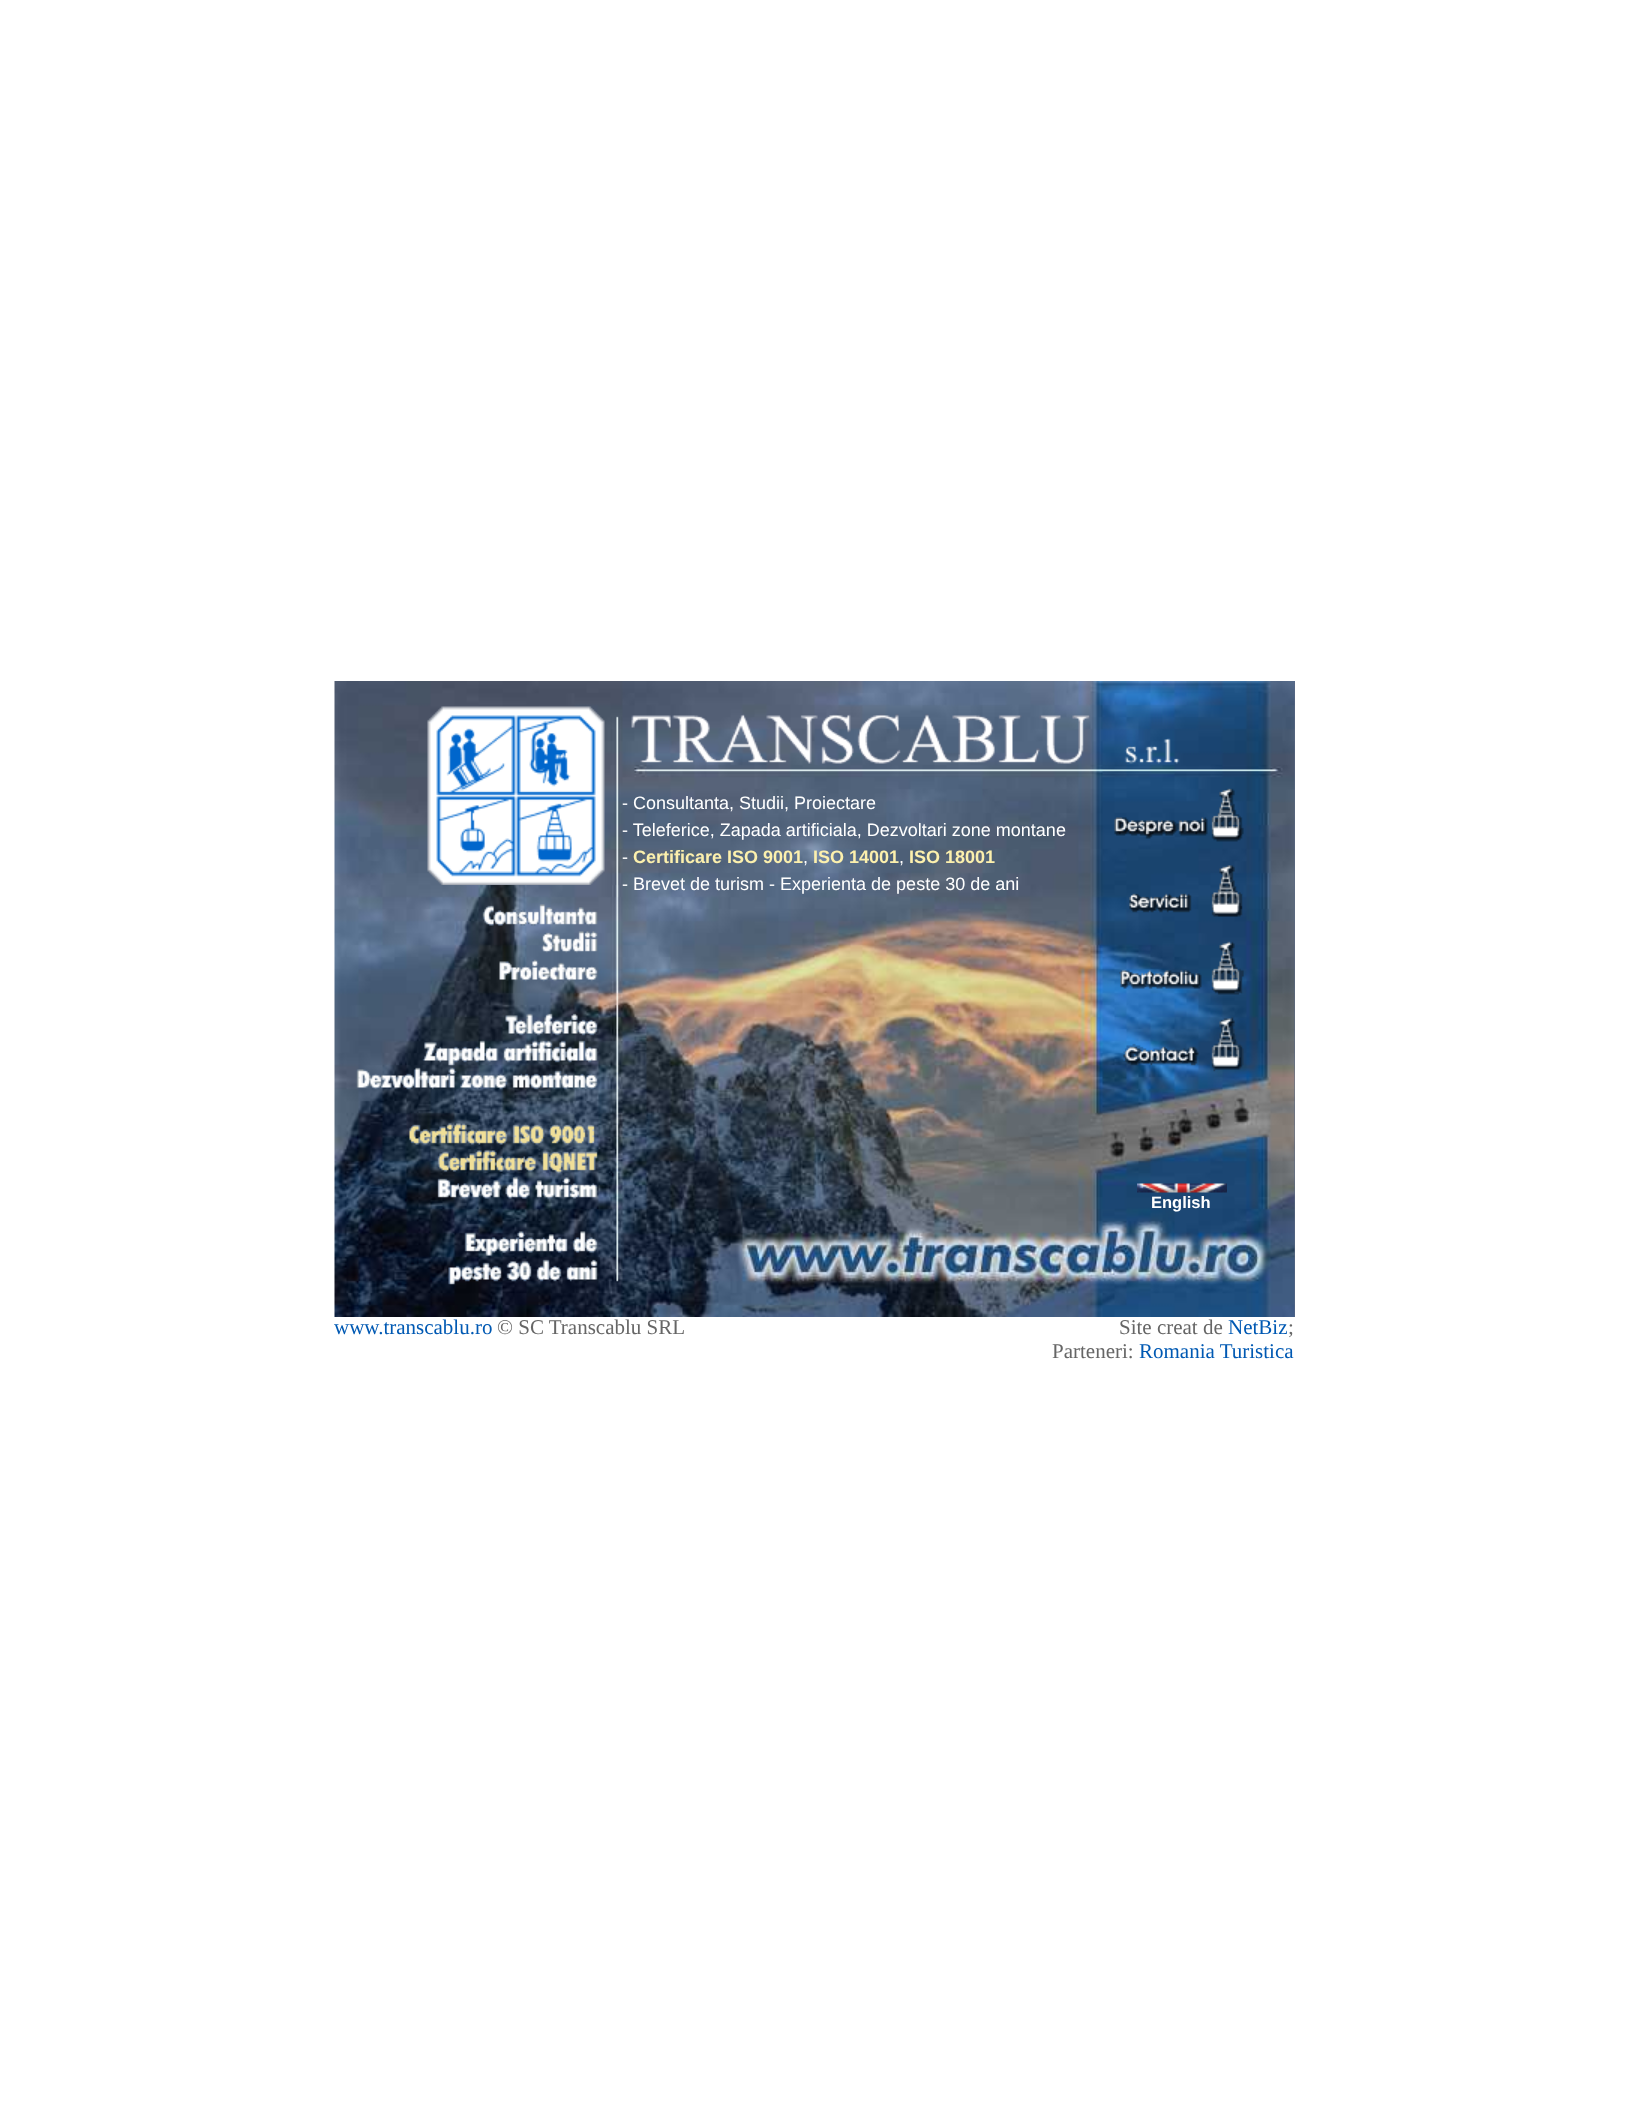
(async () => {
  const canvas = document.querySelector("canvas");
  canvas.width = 1627;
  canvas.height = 2119;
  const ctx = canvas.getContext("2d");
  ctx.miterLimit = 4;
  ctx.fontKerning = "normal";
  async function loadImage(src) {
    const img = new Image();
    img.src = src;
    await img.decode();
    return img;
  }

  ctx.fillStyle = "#ffffff";
  ctx.fillRect(0, 0, 1627, 2119);
  ctx.fillStyle = "#5a6984";
  ctx.fillRect(1294, 681, 1, 636);
  ctx.drawImage(await loadImage("img/1.png"), 334, 681, 961, 636);
  ctx.drawImage(await loadImage("img/2.png"), 427, 706, 178, 179);
  ctx.drawImage(await loadImage("img/3.png"), 356, 904, 242, 381);
  ctx.drawImage(await loadImage("img/4.png"), 631, 714, 459, 50);
  ctx.drawImage(await loadImage("img/5.png"), 1124, 738, 56, 26);
  ctx.drawImage(await loadImage("img/6.png"), 1114, 788, 130, 54);
  ctx.drawImage(await loadImage("img/7.png"), 1129, 865, 114, 52);
  ctx.drawImage(await loadImage("img/8.png"), 1119, 941, 125, 54);
  ctx.drawImage(await loadImage("img/9.png"), 1123, 1017, 121, 55);
  ctx.drawImage(await loadImage("img/10.png"), 1137, 1183, 90, 10);
  ctx.font = "18px Liberation Sans";
  ctx.fillStyle = "#ffffff";
  for (const [text, x, y] of [
    ["- Consultanta, Studii, Proiectare", 622, 809],
    ["- Teleferice, Zapada artificiala, Dezvoltari zone montane", 622, 836],
    ["-", 622, 863],
  ]) {
    ctx.fillText(text, x, y);
  }
  ctx.font = "bold 18px Liberation Sans";
  ctx.fillStyle = "#fcf0ad";
  for (const [text, x, y] of [
    ["Certificare ISO 9001", 633, 863],
    ["ISO 14001", 813, 863],
    ["ISO 18001", 909, 863],
  ]) {
    ctx.fillText(text, x, y);
  }
  ctx.font = "18px Liberation Sans";
  ctx.fillStyle = "#ffffff";
  for (const [text, x, y] of [
    [",", 803, 863],
    [",", 899, 863],
    ["- Brevet de turism - Experienta de peste 30 de ani", 622, 890],
  ]) {
    ctx.fillText(text, x, y);
  }
  ctx.font = "bold 16.5px Liberation Sans";
  ctx.fillText("English", 1151, 1208);
  ctx.font = "21px Liberation Serif";
  ctx.fillStyle = "#0059b3";
  ctx.fillText("www.transcablu.ro", 334, 1334);
  ctx.fillStyle = "#666666";
  ctx.fillText("© SC Transcablu SRL", 497, 1334);
  ctx.fillText("Site creat de", 1119, 1334);
  ctx.fillStyle = "#0059b3";
  ctx.fillText("NetBiz", 1228, 1334);
  ctx.fillStyle = "#666666";
  ctx.fillText(";", 1288, 1334);
  ctx.fillText("Parteneri:", 1052, 1358);
  ctx.fillStyle = "#0059b3";
  ctx.fillText("Romania Turistica", 1139, 1358);
})();
